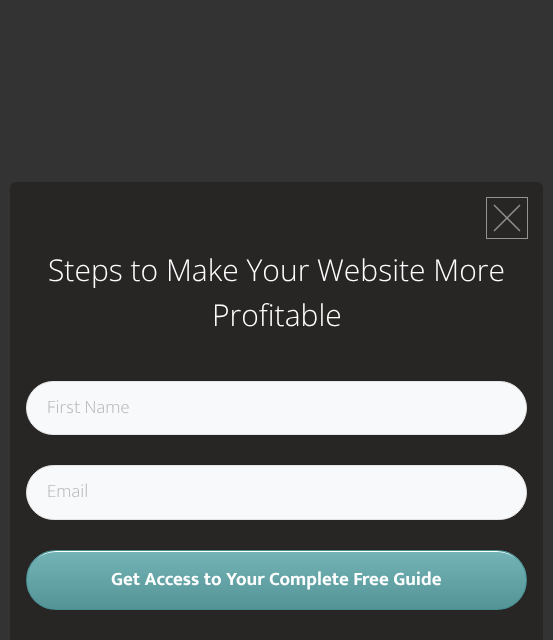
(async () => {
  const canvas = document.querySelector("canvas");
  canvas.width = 553;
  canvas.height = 640;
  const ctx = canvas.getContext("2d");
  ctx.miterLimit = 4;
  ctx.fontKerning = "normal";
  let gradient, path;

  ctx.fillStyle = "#333333";
  ctx.fillRect(0, 0, 553, 640);
  ctx.fillStyle = "#282525";
  ctx.beginPath();
  ctx.roundRect(10, 182, 533, 458, [6, 6, 0, 0]);
  ctx.fill();
  ctx.strokeStyle = "#949292";
  ctx.strokeRect(486.5, 197.5, 41, 41);
  ctx.fillStyle = "#949292";
  path = new Path2D("M493.5 205.5L494.5 204.5L520.5 230.5L519.5 231.5Z");
  ctx.fill(path);
  path = new Path2D("M519.5 204.5L520.5 205.5L494.5 231.5L493.5 230.5Z");
  ctx.fill(path);
  ctx.fillStyle = "#f8f9fa";
  ctx.beginPath();
  ctx.roundRect(26.5, 381.5, 500, 53, 26.5);
  ctx.fill();
  ctx.strokeStyle = "#e5e5e5";
  ctx.stroke();
  ctx.beginPath();
  ctx.roundRect(26.5, 465.5, 500, 54, 27);
  ctx.fill();
  ctx.stroke();
  ctx.save();
  ctx.beginPath();
  ctx.roundRect(26, 550, 501, 60, 30);
  ctx.clip();
  gradient = ctx.createLinearGradient(277, 551, 277, 609);
  gradient.addColorStop(0, "#74b4b7");
  gradient.addColorStop(1, "#549497");
  ctx.fillStyle = gradient;
  ctx.fillRect(27, 551, 499, 58);
  ctx.restore();
  ctx.fillStyle = "#ffffff";
  path = new Path2D("M56 552H497C507 552 515 556 520 563C515 556 507 551 497 551H56C46 551 38 556 33 563C38 556 46 552 56 552Z");
  ctx.fill(path);
  ctx.beginPath();
  ctx.roundRect(26.5, 550.5, 500, 59, 29.5);
  ctx.strokeStyle = "#448d90";
  ctx.stroke();
  ctx.font = "300 30px Open Sans";
  ctx.fillText("Steps to Make Your Website More", 48, 281);
  ctx.fillText("Profitable", 212, 326);
  ctx.font = "300 19px Ek Mukta";
  ctx.fillStyle = "#bcbcbc";
  ctx.fillText("First Name", 47, 413);
  ctx.fillText("Email", 47, 497);
  ctx.font = "bold 19px Ek Mukta";
  ctx.fillStyle = "#ffffff";
  ctx.fillText("Get Access to Your Complete Free Guide", 111, 585);
})();
